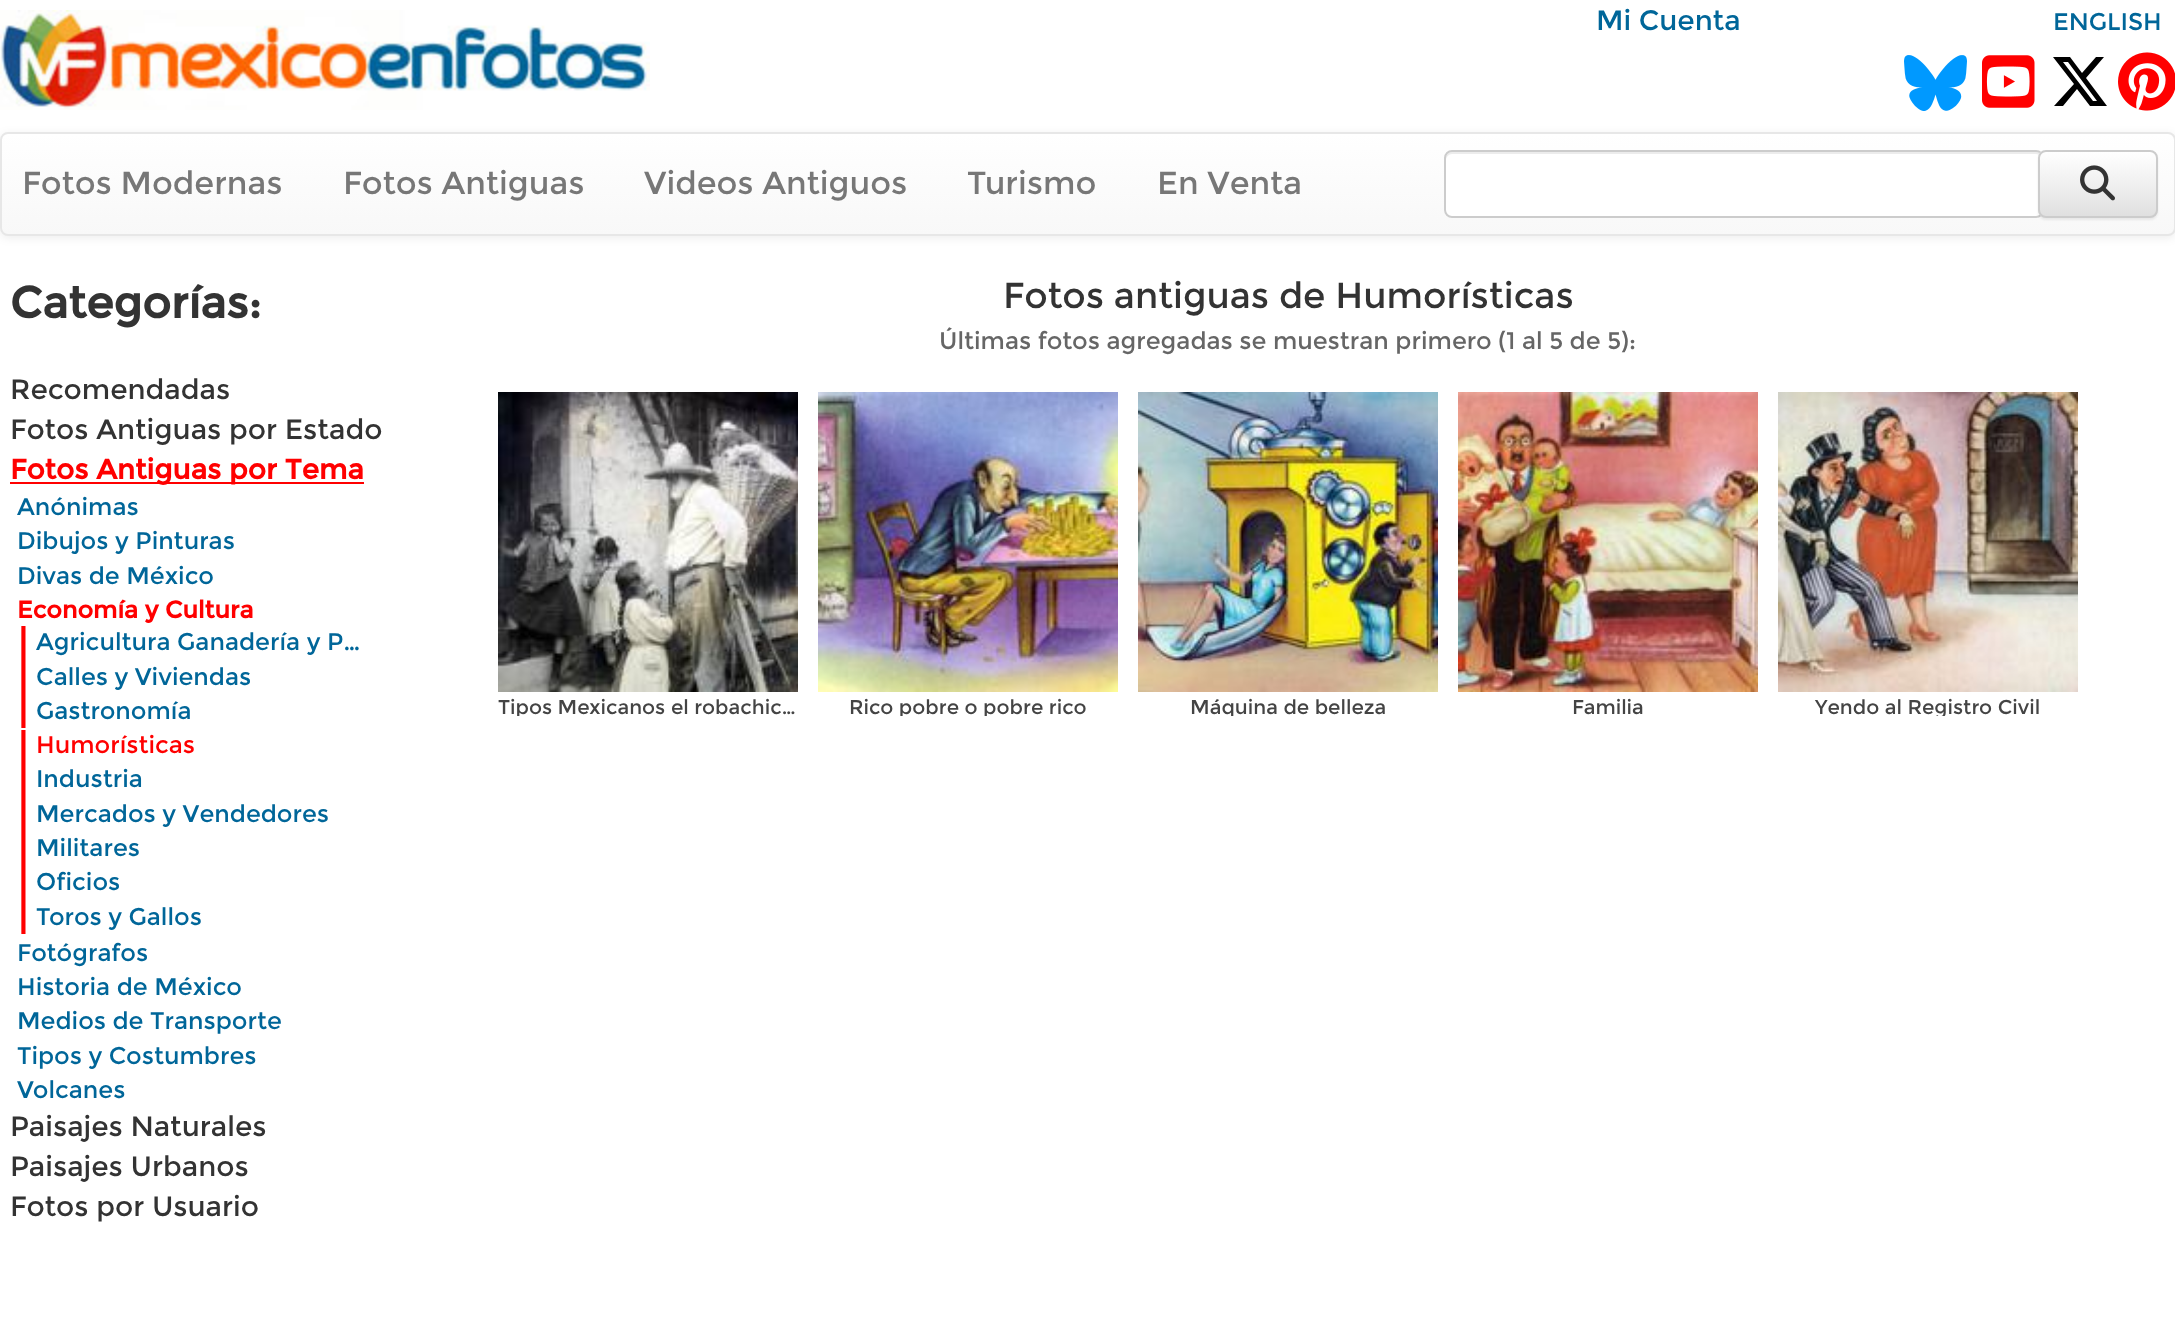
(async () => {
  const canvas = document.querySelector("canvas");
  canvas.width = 2175;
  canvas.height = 1341;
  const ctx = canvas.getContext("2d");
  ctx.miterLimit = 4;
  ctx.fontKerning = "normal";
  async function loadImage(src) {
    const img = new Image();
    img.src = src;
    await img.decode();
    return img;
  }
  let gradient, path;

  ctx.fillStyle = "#ffffff";
  ctx.fillRect(0, 0, 2175, 1341);
  ctx.drawImage(await loadImage("img/1.png"), 0, 10, 650, 100);
  ctx.drawImage(await loadImage("img/2.png"), 1904, 55, 63, 56);
  ctx.drawImage(await loadImage("img/3.png"), 1982, 55, 53, 53);
  ctx.fillStyle = "#000000";
  path = new Path2D("M2096 57H2104H2096H2104L2086 78L2107 106H2090L2077 89L2063 106H2054L2074 84L2053 57H2070L2082 73ZM2093 101H2097H2093H2097L2068 62H2063Z");
  ctx.fill(path);
  ctx.drawImage(await loadImage("img/4.png"), 2118, 52, 57, 59);
  ctx.fillStyle = "rgba(0, 0, 0, 0.07)";
  ctx.filter = "blur(5px)";
  ctx.beginPath();
  ctx.roundRect(0, 134, 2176, 104, 8);
  ctx.fill();
  ctx.filter = "none";
  ctx.save();
  ctx.beginPath();
  ctx.roundRect(0, 132, 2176, 104, 8);
  ctx.clip();
  gradient = ctx.createLinearGradient(1088, 134, 1088, 234);
  gradient.addColorStop(0, "#ffffff");
  gradient.addColorStop(1, "#f8f8f8");
  ctx.fillStyle = gradient;
  ctx.fillRect(0, 134, 2175, 100);
  ctx.restore();
  ctx.beginPath();
  ctx.roundRect(1, 133, 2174, 102, 7);
  ctx.strokeStyle = "#e7e7e7";
  ctx.lineWidth = 2;
  ctx.stroke();
  ctx.fillStyle = "#ffffff";
  ctx.beginPath();
  ctx.roundRect(1444, 150, 600, 68, 8);
  ctx.fill();
  ctx.fillStyle = "#ececec";
  path = new Path2D("M1452 154H2036C2039 154 2042 157 2042 160V158C2042 155 2039 152 2036 152H1452C1449 152 1446 155 1446 158V160C1446 157 1449 154 1452 154Z");
  ctx.fill(path);
  ctx.beginPath();
  ctx.roundRect(1445, 151, 598, 66, 7);
  ctx.strokeStyle = "#cccccc";
  ctx.stroke();
  ctx.fillStyle = "rgba(0, 0, 0, 0.07)";
  ctx.filter = "blur(1px)";
  ctx.beginPath();
  ctx.roundRect(2038, 152, 120, 68, 8);
  ctx.fill();
  ctx.filter = "none";
  ctx.save();
  ctx.beginPath();
  ctx.roundRect(2038, 150, 120, 68, 8);
  ctx.clip();
  gradient = ctx.createLinearGradient(2098, 152, 2098, 216);
  gradient.addColorStop(0, "#ffffff");
  gradient.addColorStop(1, "#e0e0e0");
  ctx.fillStyle = gradient;
  ctx.fillRect(2038, 152, 120, 64);
  ctx.restore();
  ctx.beginPath();
  ctx.roundRect(2039, 151, 118, 66, 7);
  ctx.stroke();
  ctx.drawImage(await loadImage("img/5.png"), 2080, 165, 35, 36);
  ctx.fillStyle = "#ff0000";
  ctx.fillRect(10, 482, 354, 2);
  ctx.drawImage(await loadImage("img/6.png"), 498, 392, 300, 300);
  ctx.drawImage(await loadImage("img/7.png"), 818, 392, 300, 300);
  ctx.drawImage(await loadImage("img/8.png"), 1138, 392, 300, 300);
  ctx.drawImage(await loadImage("img/9.png"), 1458, 392, 300, 300);
  ctx.drawImage(await loadImage("img/10.png"), 1778, 392, 300, 300);
  ctx.font = "28px Montserrat";
  ctx.fillStyle = "#006699";
  ctx.fillText("Mi Cuenta", 1596, 30);
  ctx.font = "24px Montserrat";
  ctx.fillText("ENGLISH", 2053, 30);
  ctx.font = "32px Montserrat";
  ctx.fillStyle = "#777777";
  for (const [text, x, y] of [
    ["Fotos Modernas", 22, 194],
    ["Fotos Antiguas", 343, 194],
    ["Videos Antiguos", 644, 194],
    ["Turismo", 967, 194],
    ["En Venta", 1157, 194],
  ]) {
    ctx.fillText(text, x, y);
  }
  ctx.font = "bold 44px Montserrat";
  ctx.fillStyle = "#333333";
  ctx.fillText("Categorías:", 10, 318);
  ctx.font = "28px Montserrat";
  ctx.fillText("Recomendadas", 10, 399);
  ctx.fillText("Fotos Antiguas por Estado", 10, 439);
  ctx.font = "bold 28px Montserrat";
  ctx.fillStyle = "#ff0000";
  ctx.fillText("Fotos Antiguas por Tema", 10, 479);
  ctx.font = "24px Montserrat";
  ctx.fillStyle = "#006699";
  for (const [text, x, y] of [
    ["Anónimas", 17, 515],
    ["Dibujos y Pinturas", 17, 549],
    ["Divas de México", 17, 584],
  ]) {
    ctx.fillText(text, x, y);
  }
  ctx.font = "bold 24px Montserrat";
  ctx.fillStyle = "#ff0000";
  ctx.fillText("Economía y Cultura", 17, 618);
  ctx.save();
  ctx.beginPath();
  ctx.rect(10, 626, 360, 34);
  ctx.clip();
  ctx.font = "50px Montserrat";
  ctx.fillText("|", 17, 656);
  ctx.restore();
  ctx.font = "24px Montserrat";
  ctx.fillStyle = "#006699";
  ctx.fillText("Agricultura Ganadería y P…", 36, 650);
  ctx.save();
  ctx.beginPath();
  ctx.rect(10, 660, 360, 34);
  ctx.clip();
  ctx.font = "50px Montserrat";
  ctx.fillStyle = "#ff0000";
  ctx.fillText("|", 17, 691);
  ctx.restore();
  ctx.fillText("Calles y Viviendas", 36, 685);
  ctx.save();
  ctx.beginPath();
  ctx.rect(10, 694, 360, 34);
  ctx.clip();
  ctx.font = "50px Montserrat";
  ctx.fillStyle = "#ff0000";
  ctx.fillText("|", 17, 725);
  ctx.restore();
  ctx.fillText("Gastronomía", 36, 719);
  ctx.save();
  ctx.beginPath();
  ctx.rect(10, 730, 360, 34);
  ctx.clip();
  ctx.font = "50px Montserrat";
  ctx.fillStyle = "#ff0000";
  ctx.fillText("|", 17, 759);
  ctx.restore();
  ctx.fillStyle = "#ff0000";
  ctx.fillText("Humorísticas", 36, 753);
  ctx.save();
  ctx.beginPath();
  ctx.rect(10, 764, 360, 34);
  ctx.clip();
  ctx.font = "50px Montserrat";
  ctx.fillText("|", 17, 793);
  ctx.restore();
  ctx.fillStyle = "#006699";
  ctx.fillText("Industria", 36, 787);
  ctx.save();
  ctx.beginPath();
  ctx.rect(10, 798, 360, 34);
  ctx.clip();
  ctx.font = "50px Montserrat";
  ctx.fillStyle = "#ff0000";
  ctx.fillText("|", 17, 828);
  ctx.restore();
  ctx.fillText("Mercados y Vendedores", 36, 822);
  ctx.save();
  ctx.beginPath();
  ctx.rect(10, 832, 360, 34);
  ctx.clip();
  ctx.font = "50px Montserrat";
  ctx.fillStyle = "#ff0000";
  ctx.fillText("|", 17, 862);
  ctx.restore();
  ctx.fillText("Militares", 36, 856);
  ctx.save();
  ctx.beginPath();
  ctx.rect(10, 866, 360, 34);
  ctx.clip();
  ctx.font = "50px Montserrat";
  ctx.fillStyle = "#ff0000";
  ctx.fillText("|", 17, 896);
  ctx.restore();
  ctx.fillText("Oficios", 36, 890);
  ctx.save();
  ctx.beginPath();
  ctx.rect(10, 900, 360, 34);
  ctx.clip();
  ctx.font = "50px Montserrat";
  ctx.fillStyle = "#ff0000";
  ctx.fillText("|", 17, 931);
  ctx.restore();
  for (const [text, x, y] of [
    ["Toros y Gallos", 36, 925],
    ["Fotógrafos", 17, 961],
    ["Historia de México", 17, 995],
    ["Medios de Transporte", 17, 1029],
    ["Tipos y Costumbres", 17, 1064],
    ["Volcanes", 17, 1098],
  ]) {
    ctx.fillText(text, x, y);
  }
  ctx.font = "28px Montserrat";
  ctx.fillStyle = "#333333";
  for (const [text, x, y] of [
    ["Paisajes Naturales", 10, 1136],
    ["Paisajes Urbanos", 10, 1176],
    ["Fotos por Usuario", 10, 1216],
  ]) {
    ctx.fillText(text, x, y);
  }
  ctx.font = "36px Montserrat";
  ctx.fillText("Fotos antiguas de Humorísticas", 1003, 308);
  ctx.font = "24px Montserrat";
  ctx.fillStyle = "#666666";
  ctx.fillText("Últimas fotos agregadas se muestran primero (1 al 5 de 5):", 939, 349);
  ctx.save();
  ctx.beginPath();
  ctx.rect(498, 698, 300, 18);
  ctx.clip();
  ctx.font = "20px Montserrat";
  ctx.fillStyle = "#444444";
  ctx.fillText("Tipos Mexicanos", 498, 714);
  ctx.restore();
  ctx.font = "20px Montserrat";
  ctx.fillStyle = "#444444";
  ctx.fillText("el robachic…", 671, 714);
  ctx.save();
  ctx.beginPath();
  ctx.rect(818, 698, 300, 18);
  ctx.clip();
  ctx.fillText("Rico pobre o pobre rico", 849, 714);
  ctx.restore();
  ctx.save();
  ctx.beginPath();
  ctx.rect(1138, 698, 300, 18);
  ctx.clip();
  ctx.fillText("Máquina de belleza", 1190, 714);
  ctx.restore();
  ctx.fillText("Familia", 1572, 714);
  ctx.save();
  ctx.beginPath();
  ctx.rect(1778, 698, 300, 18);
  ctx.clip();
  ctx.fillText("Yendo al Registro Civil", 1815, 714);
  ctx.restore();
})();
